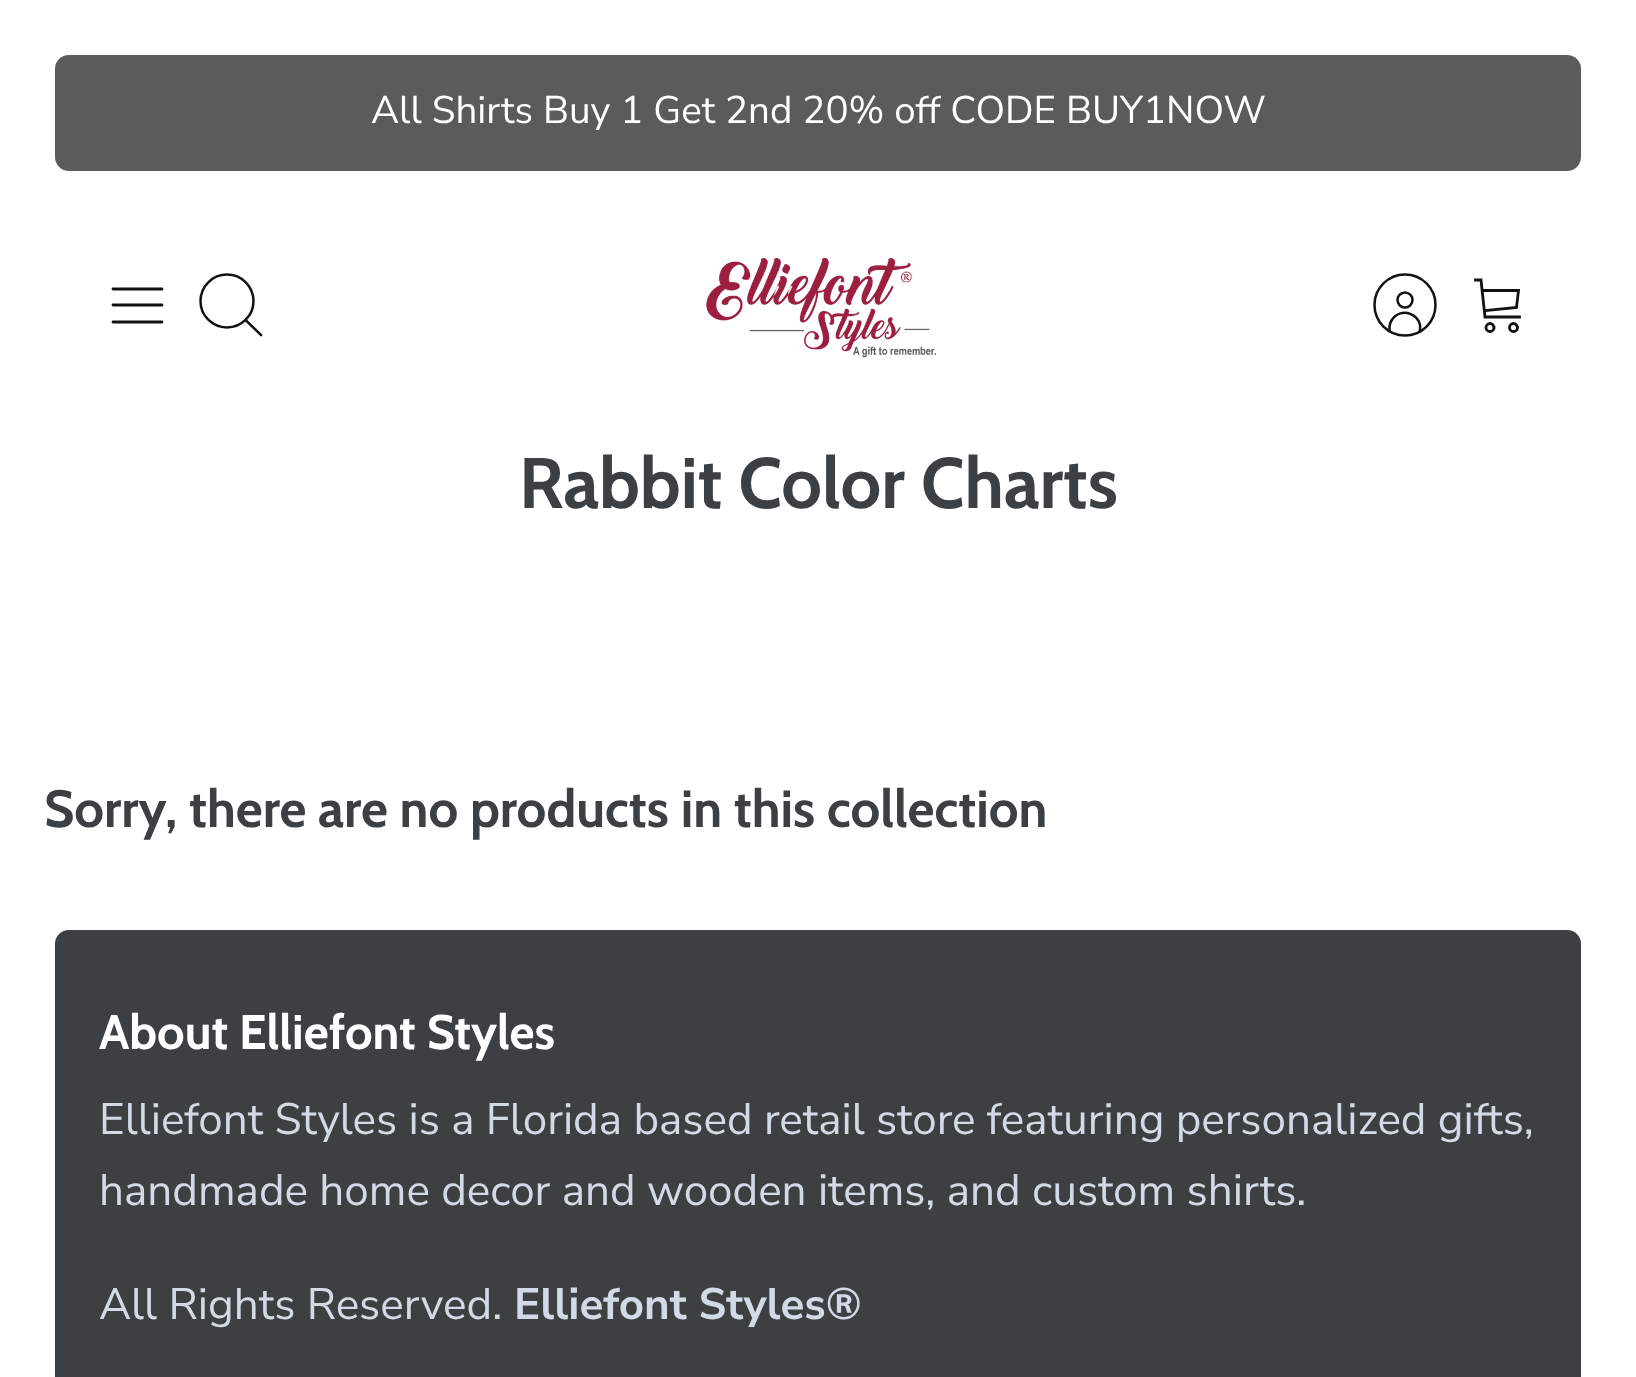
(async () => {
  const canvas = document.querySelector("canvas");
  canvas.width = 1636;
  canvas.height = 1377;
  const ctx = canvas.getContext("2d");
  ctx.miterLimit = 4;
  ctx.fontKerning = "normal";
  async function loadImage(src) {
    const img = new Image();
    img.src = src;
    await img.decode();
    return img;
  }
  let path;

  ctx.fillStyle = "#ffffff";
  ctx.fillRect(0, 0, 1636, 1377);
  ctx.fillStyle = "#5b5b5b";
  ctx.beginPath();
  ctx.roundRect(55, 55, 1526, 116, 14);
  ctx.fill();
  path = new Path2D("M113 305H162M113 289H162M113 322H162");
  ctx.strokeStyle = "#121212";
  ctx.lineWidth = 2.8;
  ctx.lineCap = "round";
  ctx.lineJoin = "round";
  ctx.stroke(path);
  ctx.beginPath();
  ctx.arc(227, 301, 26.5, 0, Math.PI * 2);
  ctx.lineWidth = 2.5;
  ctx.stroke();
  path = new Path2D("M246 320.5L261 335");
  ctx.lineCap = "square";
  ctx.lineJoin = "miter";
  ctx.stroke(path);
  ctx.drawImage(await loadImage("img/1.png"), 706, 257, 230, 101);
  path = new Path2D("M1419.5 332C1424.5 315 1400.5 305 1391.5 320.5C1389.5 324 1389 328 1390 332");
  ctx.lineCap = "butt";
  ctx.stroke(path);
  ctx.beginPath();
  ctx.arc(1405, 300, 7.5, 0, Math.PI * 2);
  ctx.stroke();
  ctx.beginPath();
  ctx.arc(1405, 305, 30.5, 0, Math.PI * 2);
  ctx.stroke();
  path = new Path2D("M1475.5 280H1481L1485 317H1519.5M1483 290.5H1518.5L1516.5 307.5L1486.5 310.5");
  ctx.lineWidth = 2.8;
  ctx.lineCap = "square";
  ctx.stroke(path);
  ctx.beginPath();
  ctx.arc(1490, 327.5, 4, 0, Math.PI * 2);
  ctx.stroke();
  ctx.beginPath();
  ctx.arc(1513.5, 327.5, 4, 0, Math.PI * 2);
  ctx.stroke();
  ctx.fillStyle = "#3c4043";
  ctx.beginPath();
  ctx.roundRect(55, 930, 1526, 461, 14);
  ctx.fill();
  ctx.font = "38.5px Nunito Sans";
  ctx.fillStyle = "#ffffff";
  ctx.fillText("All Shirts Buy 1 Get 2nd 20% off CODE BUY1NOW", 371, 123);
  ctx.font = "bold 71.5px Cabin";
  ctx.fillStyle = "#3c4043";
  ctx.fillText("Rabbit Color Charts", 519, 508);
  ctx.font = "bold 52.25px Cabin";
  ctx.fillText("Sorry, there are no products in this collection", 44, 827);
  ctx.font = "bold 48.5px Cabin";
  ctx.fillStyle = "#ffffff";
  ctx.fillText("About Elliefont Styles", 99, 1049);
  ctx.font = "44px Nunito Sans";
  ctx.fillStyle = "#d2dbe5";
  for (const [text, x, y] of [
    ["Elliefont Styles is a Florida based retail store featuring personalized gifts,", 99, 1134],
    ["handmade home decor and wooden items, and custom shirts.", 99, 1205],
    ["All Rights Reserved.", 99, 1319],
  ]) {
    ctx.fillText(text, x, y);
  }
  ctx.font = "bold 44px Nunito Sans";
  ctx.fillText("Elliefont Styles®", 514, 1319);
})();
